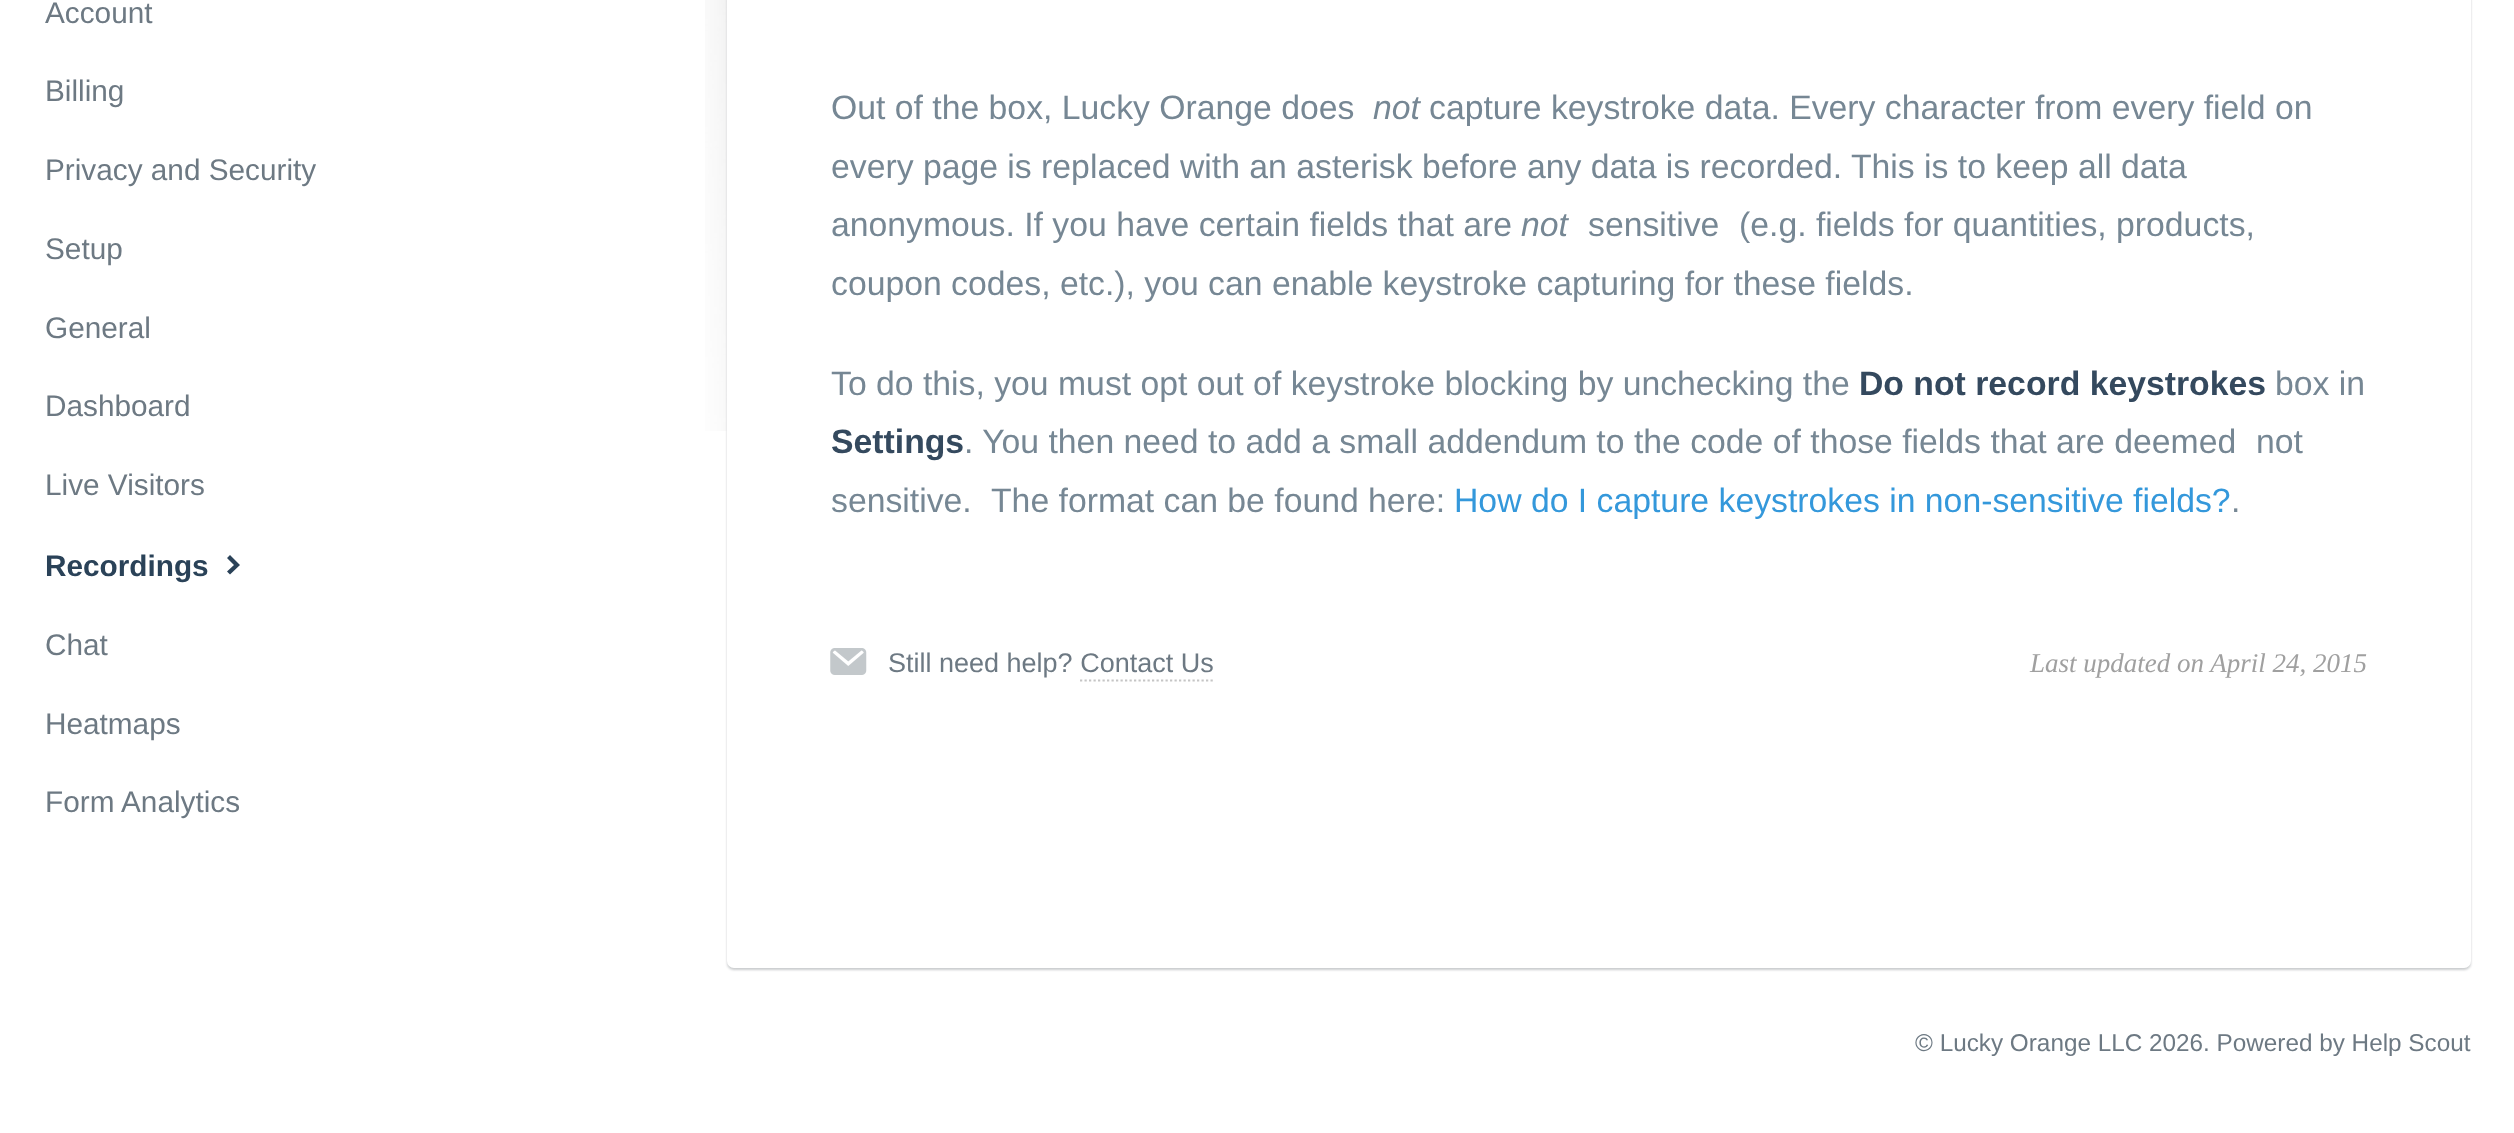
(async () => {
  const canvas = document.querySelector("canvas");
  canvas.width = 2514;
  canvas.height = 1133;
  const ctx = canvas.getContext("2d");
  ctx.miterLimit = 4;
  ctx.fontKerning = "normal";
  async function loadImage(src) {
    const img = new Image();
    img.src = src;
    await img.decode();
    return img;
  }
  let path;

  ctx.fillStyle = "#ffffff";
  ctx.fillRect(0, 0, 2514, 1133);
  ctx.fillStyle = "#2a4258";
  path = new Path2D("M230 555L227 558L234 565L227 571.5L230 574.5L240 565Z");
  ctx.fill(path);
  ctx.drawImage(await loadImage("img/1.png"), 705, 0, 22, 431);
  ctx.fillStyle = "rgba(44, 50, 61, 0.25)";
  ctx.filter = "blur(1px)";
  ctx.beginPath();
  ctx.roundRect(727, -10, 1744, 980, 7);
  ctx.fill();
  ctx.filter = "none";
  ctx.fillStyle = "#ffffff";
  ctx.beginPath();
  ctx.roundRect(727, -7, 1744, 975, 7);
  ctx.fill();
  ctx.drawImage(await loadImage("img/2.png"), 830, 648, 37, 27);
  path = new Path2D("M1080 680.5H1213");
  ctx.strokeStyle = "#c5c5c5";
  ctx.lineWidth = 2.2;
  ctx.setLineDash([2.25, 2.25]);
  ctx.stroke(path);
  ctx.font = "29.75px Liberation Sans";
  ctx.fillStyle = "#6d7983";
  for (const [text, x, y] of [
    ["Account", 45, 23],
    ["Billing", 45, 101],
    ["Privacy and Security", 45, 180],
    ["Setup", 45, 259],
    ["General", 45, 338],
    ["Dashboard", 45, 416],
    ["Live Visitors", 45, 495],
  ]) {
    ctx.fillText(text, x, y);
  }
  ctx.font = "bold 29.75px Liberation Sans";
  ctx.fillStyle = "#2a4258";
  ctx.fillText("Recordings", 45, 576);
  ctx.font = "29.75px Liberation Sans";
  ctx.fillStyle = "#6d7983";
  for (const [text, x, y] of [
    ["Chat", 45, 655],
    ["Heatmaps", 45, 734],
    ["Form Analytics", 45, 812],
  ]) {
    ctx.fillText(text, x, y);
  }
  ctx.font = "33.75px Liberation Sans";
  ctx.fillStyle = "#768794";
  ctx.fillText("Out of the box, Lucky Orange does", 831, 119);
  ctx.font = "italic 33.75px Liberation Sans";
  ctx.fillText("not", 1373, 119);
  ctx.font = "33.75px Liberation Sans";
  for (const [text, x, y] of [
    ["capture keystroke data. Every character from every field on", 1429, 119],
    ["every page is replaced with an asterisk before any data is recorded. This is to keep all data", 831, 178],
    ["anonymous. If you have certain fields that are", 831, 236],
  ]) {
    ctx.fillText(text, x, y);
  }
  ctx.font = "italic 33.75px Liberation Sans";
  ctx.fillText("not", 1521, 236);
  ctx.font = "33.75px Liberation Sans";
  for (const [text, x, y] of [
    ["sensitive", 1588, 236],
    ["(e.g. fields for quantities, products,", 1739, 236],
    ["coupon codes, etc.), you can enable keystroke capturing for these fields.", 831, 295],
    ["To do this, you must opt out of keystroke blocking by unchecking the", 831, 395],
  ]) {
    ctx.fillText(text, x, y);
  }
  ctx.font = "bold 33.75px Liberation Sans";
  ctx.fillStyle = "#34495e";
  ctx.fillText("Do not record keystrokes", 1859, 395);
  ctx.font = "33.75px Liberation Sans";
  ctx.fillStyle = "#768794";
  ctx.fillText("box in", 2275, 395);
  ctx.font = "bold 33.75px Liberation Sans";
  ctx.fillStyle = "#34495e";
  ctx.fillText("Settings", 831, 453);
  ctx.font = "33.75px Liberation Sans";
  ctx.fillStyle = "#768794";
  for (const [text, x, y] of [
    [". You then need to add a small addendum to the code of those fields that are deemed", 964, 453],
    ["not", 2256, 453],
    ["sensitive.", 831, 512],
    ["The format can be found here:", 991, 512],
  ]) {
    ctx.fillText(text, x, y);
  }
  ctx.fillStyle = "#3498db";
  ctx.fillText("How do I capture keystrokes in non-sensitive fields?", 1454, 512);
  ctx.fillStyle = "#768794";
  ctx.fillText(".", 2231, 512);
  ctx.font = "27px Liberation Sans";
  ctx.fillStyle = "#6d7983";
  ctx.fillText("Still need help? Contact Us", 888, 672);
  ctx.font = "italic 27px Liberation Serif";
  ctx.fillStyle = "#a0a0a0";
  ctx.fillText("Last updated on April 24, 2015", 2030, 672);
  ctx.font = "24.3px Liberation Sans";
  ctx.fillStyle = "#6d7983";
  ctx.fillText("© Lucky Orange LLC 2026. Powered by Help Scout", 1915, 1051);
})();
